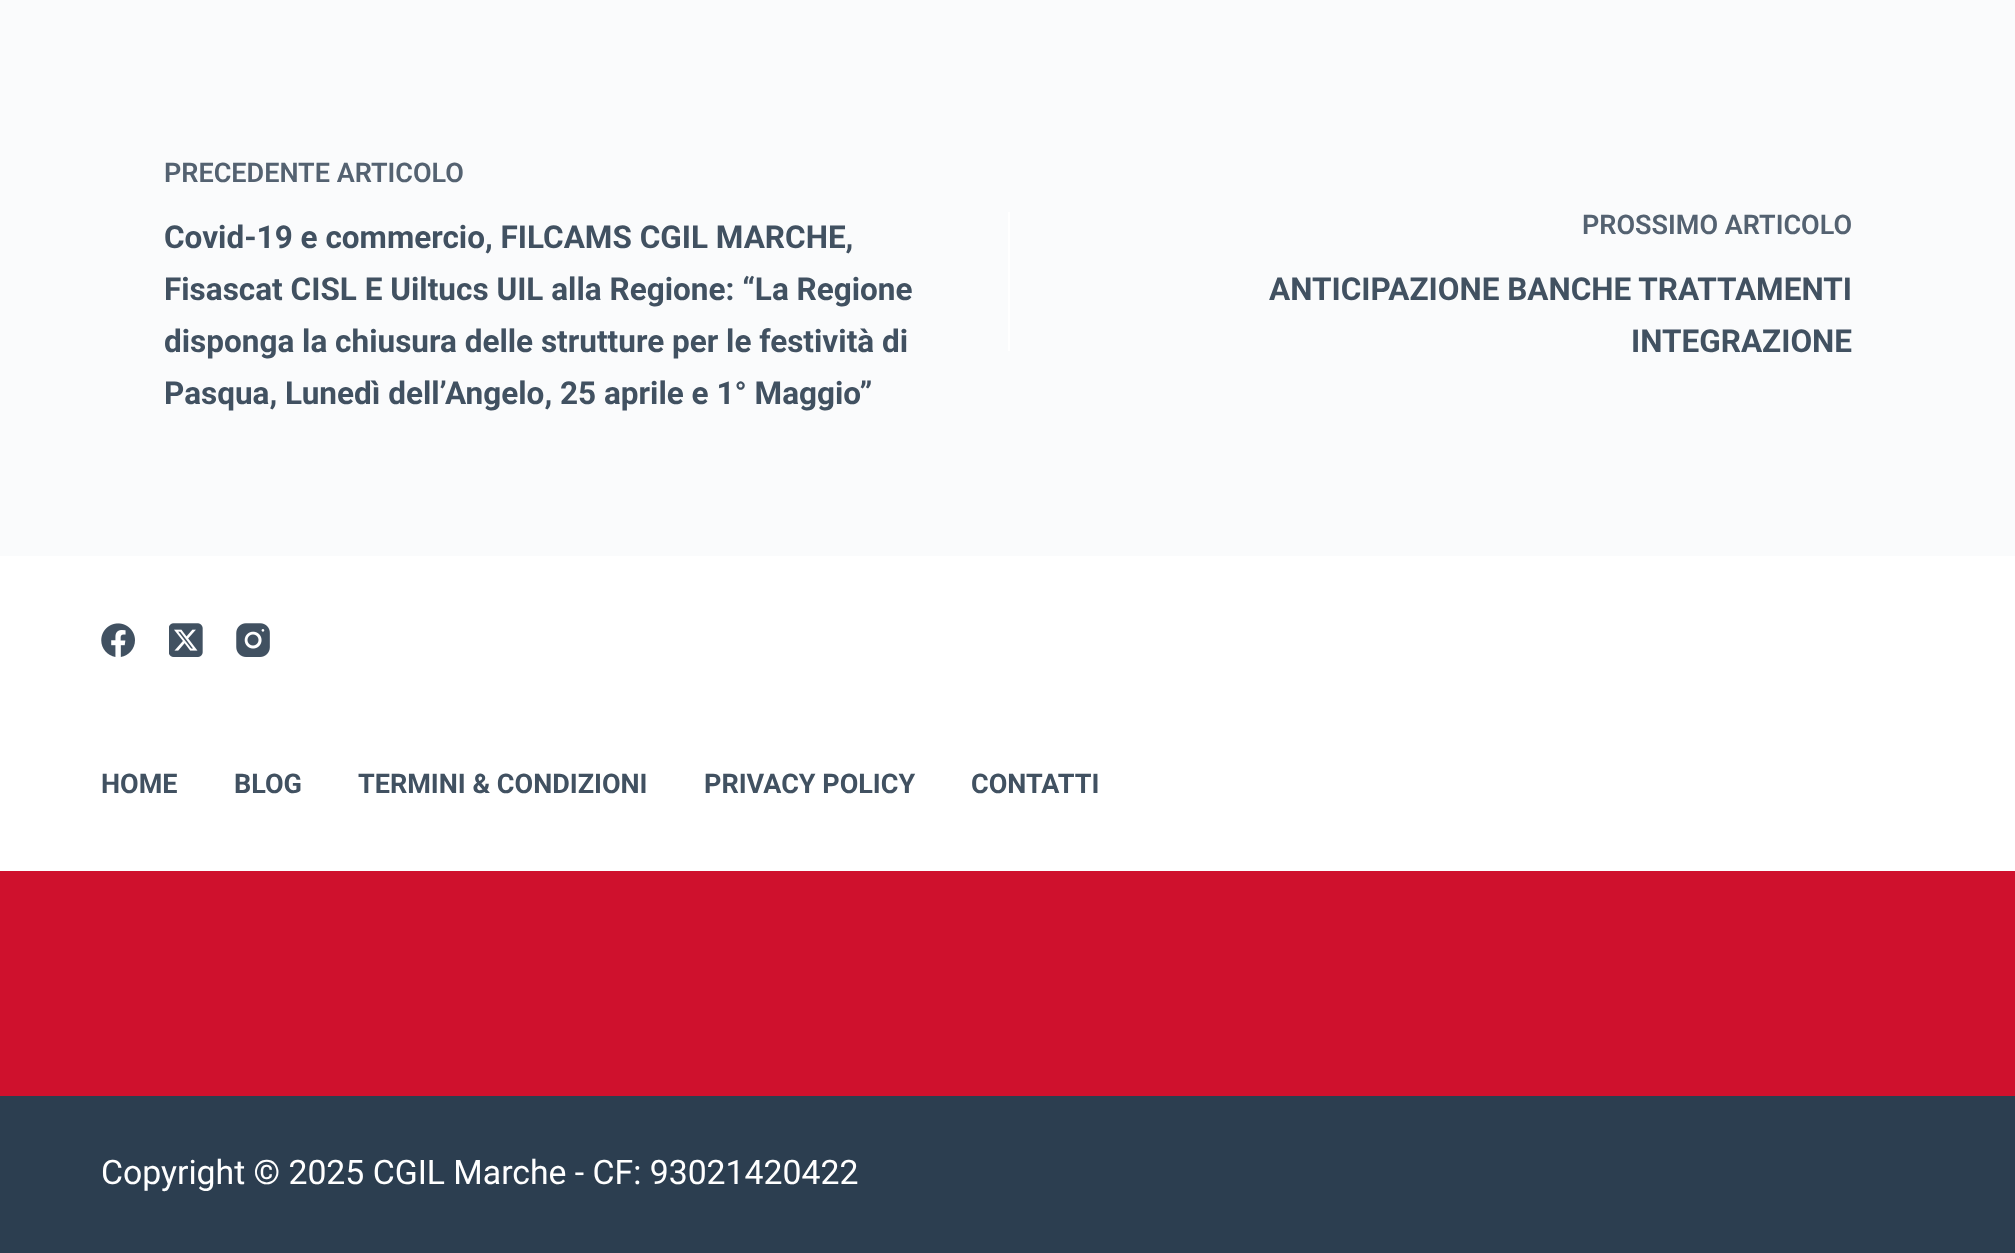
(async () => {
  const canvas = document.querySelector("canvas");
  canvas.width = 2015;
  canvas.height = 1253;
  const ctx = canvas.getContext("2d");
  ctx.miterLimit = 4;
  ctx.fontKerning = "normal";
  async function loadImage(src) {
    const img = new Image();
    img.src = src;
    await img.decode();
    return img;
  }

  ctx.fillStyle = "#fafbfc";
  ctx.fillRect(0, 0, 2015, 1253);
  ctx.fillStyle = "#ffffff";
  ctx.fillRect(1008, 212, 2, 139);
  ctx.fillRect(0, 556, 2015, 315);
  ctx.drawImage(await loadImage("img/1.png"), 101, 623, 34, 34);
  ctx.drawImage(await loadImage("img/2.png"), 169, 623, 34, 34);
  ctx.drawImage(await loadImage("img/3.png"), 236, 623, 34, 34);
  ctx.fillStyle = "#cf112d";
  ctx.fillRect(0, 871, 2015, 225);
  ctx.fillStyle = "#2c3e50";
  ctx.fillRect(0, 1096, 2015, 157);
  ctx.font = "600 27px Roboto";
  ctx.fillStyle = "#546271";
  ctx.fillText("PRECEDENTE ARTICOLO", 164, 182);
  ctx.font = "bold 31.5px Roboto";
  ctx.fillStyle = "#415161";
  for (const [text, x, y] of [
    ["Covid-19 e commercio, FILCAMS CGIL MARCHE,", 164, 248],
    ["Fisascat CISL E Uiltucs UIL alla Regione: “La Regione", 164, 300],
    ["disponga la chiusura delle strutture per le festività di", 164, 352],
    ["Pasqua, Lunedì dell’Angelo, 25 aprile e 1° Maggio”", 164, 404],
  ]) {
    ctx.fillText(text, x, y);
  }
  ctx.font = "600 27px Roboto";
  ctx.fillStyle = "#546271";
  ctx.fillText("PROSSIMO ARTICOLO", 1582, 234);
  ctx.font = "bold 31.5px Roboto";
  ctx.fillStyle = "#415161";
  ctx.fillText("ANTICIPAZIONE BANCHE TRATTAMENTI", 1269, 300);
  ctx.fillText("INTEGRAZIONE", 1631, 352);
  ctx.font = "bold 27px Roboto";
  for (const [text, x, y] of [
    ["HOME", 101, 793],
    ["BLOG", 234, 793],
    ["TERMINI & CONDIZIONI", 358, 793],
    ["PRIVACY POLICY", 704, 793],
    ["CONTATTI", 971, 793],
  ]) {
    ctx.fillText(text, x, y);
  }
  ctx.font = "33.75px Roboto";
  ctx.fillStyle = "#ffffff";
  ctx.fillText("Copyright © 2025 CGIL Marche - CF: 93021420422", 101, 1184);
})();
